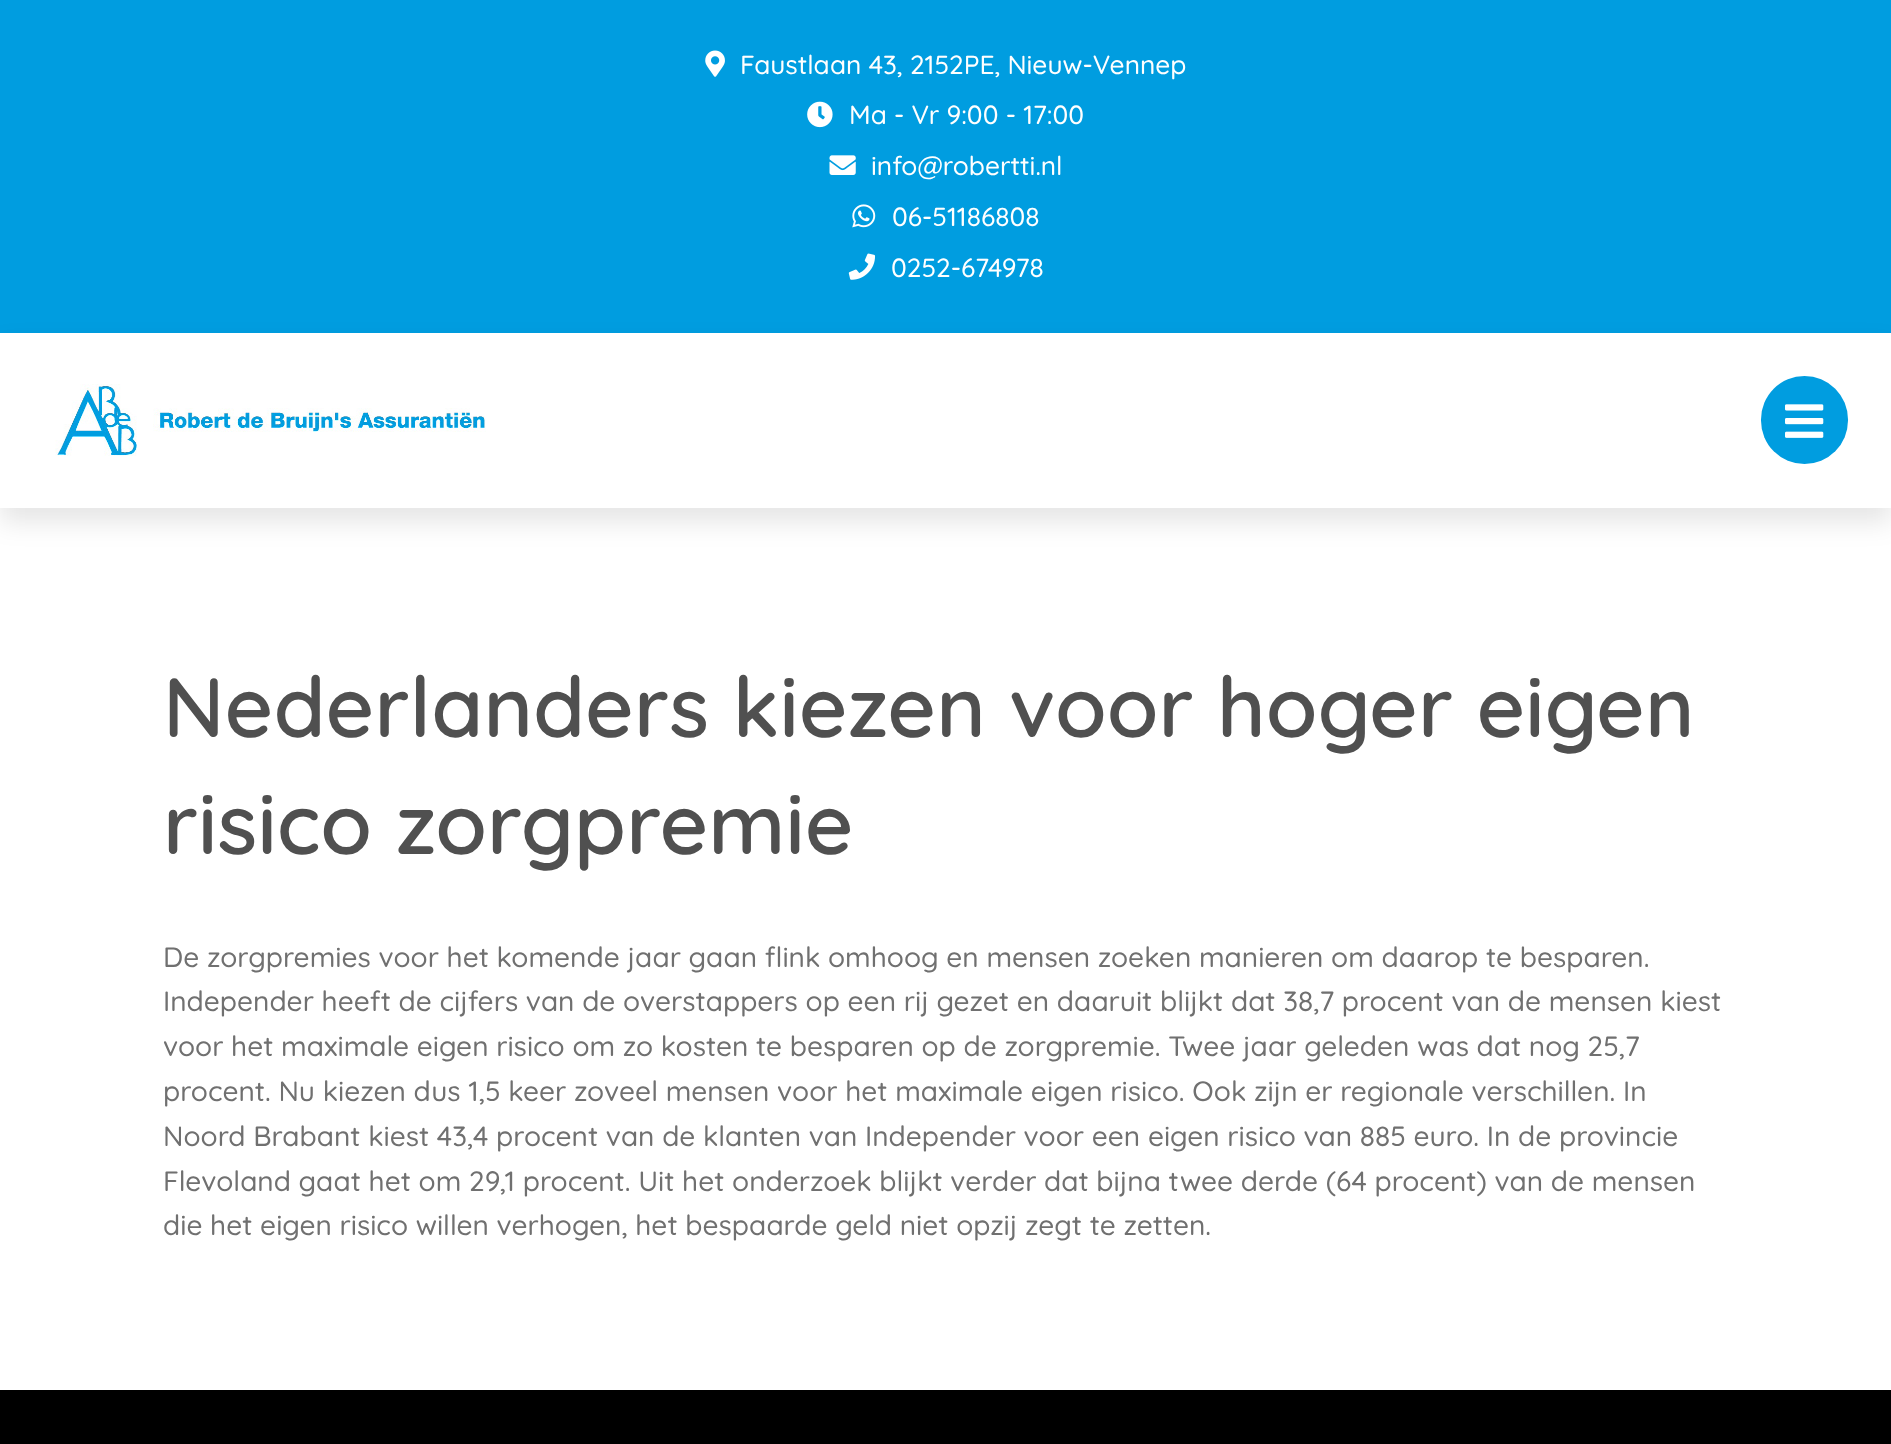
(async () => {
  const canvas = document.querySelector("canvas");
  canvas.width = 1891;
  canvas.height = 1444;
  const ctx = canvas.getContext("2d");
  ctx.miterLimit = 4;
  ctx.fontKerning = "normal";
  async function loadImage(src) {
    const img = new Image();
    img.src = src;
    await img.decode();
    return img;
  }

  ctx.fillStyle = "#ffffff";
  ctx.fillRect(0, 0, 1891, 1444);
  ctx.fillStyle = "#009de0";
  ctx.fillRect(0, 0, 1891, 333);
  ctx.drawImage(await loadImage("img/1.png"), 705, 50, 20, 27);
  ctx.drawImage(await loadImage("img/2.png"), 807, 101, 26, 27);
  ctx.drawImage(await loadImage("img/3.png"), 829, 155, 27, 20);
  ctx.drawImage(await loadImage("img/4.png"), 852, 204, 24, 24);
  ctx.drawImage(await loadImage("img/5.png"), 848, 253, 28, 27);
  ctx.fillStyle = "rgba(0, 0, 0, 0.1)";
  ctx.filter = "blur(13px)";
  ctx.beginPath();
  ctx.rect(0, 347, 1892, 175);
  ctx.fill();
  ctx.filter = "none";
  ctx.fillStyle = "#ffffff";
  ctx.fillRect(0, 333, 1891, 175);
  ctx.drawImage(await loadImage("img/6.png"), 55, 384, 431, 72);
  ctx.fillStyle = "#009de0";
  ctx.beginPath();
  ctx.roundRect(1761, 376, 87, 88, 43.5);
  ctx.fill();
  ctx.drawImage(await loadImage("img/7.png"), 1785, 404, 39, 34);
  ctx.fillStyle = "#000000";
  ctx.fillRect(0, 1390, 1891, 54);
  ctx.font = "500 26.25px Quicksand";
  ctx.fillStyle = "#ffffff";
  for (const [text, x, y] of [
    ["Faustlaan 43, 2152PE, Nieuw-Vennep", 740, 74],
    ["Ma - Vr 9:00 - 17:00", 849, 124],
    ["info@robertti.nl", 871, 175],
    ["06-51186808", 892, 226],
    ["0252-674978", 891, 277],
  ]) {
    ctx.fillText(text, x, y);
  }
  ctx.font = "600 84px Quicksand";
  ctx.fillStyle = "#505050";
  ctx.fillText("Nederlanders kiezen voor hoger eigen", 163, 737);
  ctx.fillText("risico zorgpremie", 163, 854);
  ctx.font = "500 28px Quicksand";
  ctx.fillStyle = "#707070";
  for (const [text, x, y] of [
    ["De zorgpremies voor het komende jaar gaan flink omhoog en mensen zoeken manieren om daarop te besparen.", 163, 967],
    ["Independer heeft de cijfers van de overstappers op een rij gezet en daaruit blijkt dat 38,7 procent van de mensen kiest", 163, 1011],
    ["voor het maximale eigen risico om zo kosten te besparen op de zorgpremie. Twee jaar geleden was dat nog 25,7", 163, 1056],
    ["procent. Nu kiezen dus 1,5 keer zoveel mensen voor het maximale eigen risico. Ook zijn er regionale verschillen. In", 163, 1101],
    ["Noord Brabant kiest 43,4 procent van de klanten van Independer voor een eigen risico van 885 euro. In de provincie", 163, 1146],
    ["Flevoland gaat het om 29,1 procent. Uit het onderzoek blijkt verder dat bijna twee derde (64 procent) van de mensen", 163, 1191],
    ["die het eigen risico willen verhogen, het bespaarde geld niet opzij zegt te zetten.", 163, 1235],
  ]) {
    ctx.fillText(text, x, y);
  }
})();
